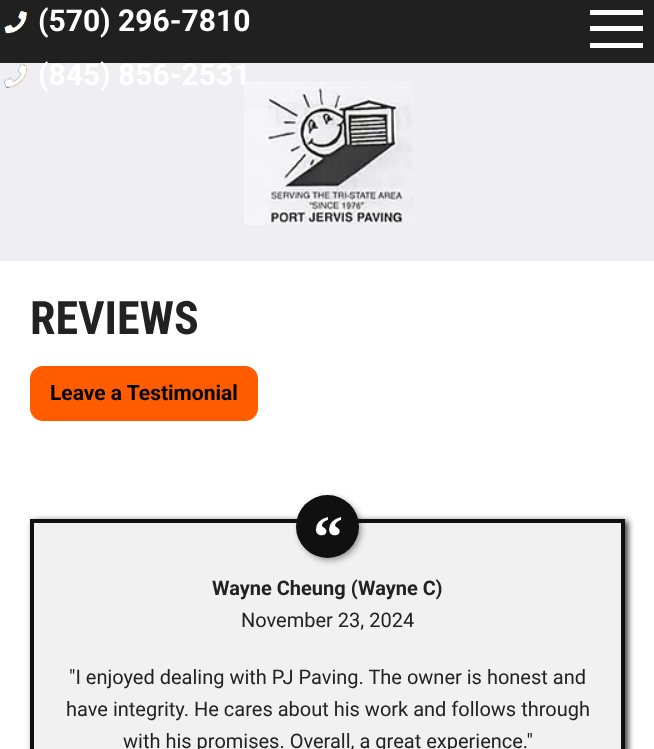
(async () => {
  const canvas = document.querySelector("canvas");
  canvas.width = 654;
  canvas.height = 749;
  const ctx = canvas.getContext("2d");
  ctx.miterLimit = 4;
  ctx.fontKerning = "normal";
  async function loadImage(src) {
    const img = new Image();
    img.src = src;
    await img.decode();
    return img;
  }

  ctx.fillStyle = "#ffffff";
  ctx.fillRect(0, 0, 654, 749);
  ctx.fillStyle = "#efeef3";
  ctx.fillRect(0, 63, 654, 198);
  ctx.fillStyle = "#202020";
  ctx.fillRect(0, 0, 654, 63);
  ctx.drawImage(await loadImage("img/1.png"), 4, 10, 23, 24);
  ctx.drawImage(await loadImage("img/2.png"), 4, 63, 23, 25);
  ctx.drawImage(await loadImage("img/3.png"), 244, 81, 169, 144);
  for (const [x, y, w, h, color] of [
    [590, 10, 53, 5, "#ffffff"],
    [590, 26, 53, 5, "#ffffff"],
    [590, 43, 53, 5, "#ffffff"],
  ]) {
    ctx.fillStyle = color;
    ctx.fillRect(x, y, w, h);
  }
  ctx.fillStyle = "#ff5c00";
  ctx.beginPath();
  ctx.roundRect(30, 366, 228, 55, 13);
  ctx.fill();
  ctx.fillStyle = "#333333";
  ctx.filter = "blur(3px)";
  ctx.beginPath();
  ctx.rect(33, 521, 595, 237);
  ctx.fill();
  ctx.filter = "none";
  ctx.fillStyle = "#f1f1f1";
  ctx.beginPath();
  ctx.rect(32, 521, 591, 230);
  ctx.fill();
  ctx.strokeStyle = "#101010";
  ctx.lineWidth = 4;
  ctx.stroke();
  ctx.fillStyle = "rgba(0, 0, 0, 0.4)";
  ctx.filter = "blur(3px)";
  ctx.beginPath();
  ctx.roundRect(299, 498, 62, 62, 31);
  ctx.fill();
  ctx.filter = "none";
  ctx.fillStyle = "#101010";
  ctx.beginPath();
  ctx.arc(327.5, 526.5, 31.5, 0, Math.PI * 2);
  ctx.fill();
  ctx.font = "bold 30px Roboto";
  ctx.fillStyle = "#ffffff";
  ctx.fillText("(570) 296-7810", 38, 31);
  ctx.fillText("(845) 856-2531", 38, 85);
  ctx.font = "bold 46px Roboto Condensed";
  ctx.fillStyle = "#222222";
  ctx.fillText("REVIEWS", 30, 334);
  ctx.font = "bold 21px Roboto";
  ctx.fillStyle = "#000000";
  ctx.fillText("Leave a Testimonial", 50, 400);
  ctx.font = "bold 60px Liberation Serif";
  ctx.fillStyle = "#ffffff";
  ctx.fillText("“", 313, 557);
  ctx.font = "bold 20px Roboto";
  ctx.fillStyle = "#222222";
  ctx.fillText("Wayne Cheung (Wayne C)", 212, 595);
  ctx.font = "20px Roboto";
  for (const [text, x, y] of [
    ["November 23, 2024", 241, 627],
    ["\"I enjoyed dealing with PJ Paving. The owner is honest and", 69, 684],
    ["have integrity. He cares about his work and follows through", 66, 716],
    ["with his promises. Overall, a great experience.\"", 123, 748],
  ]) {
    ctx.fillText(text, x, y);
  }
})();
